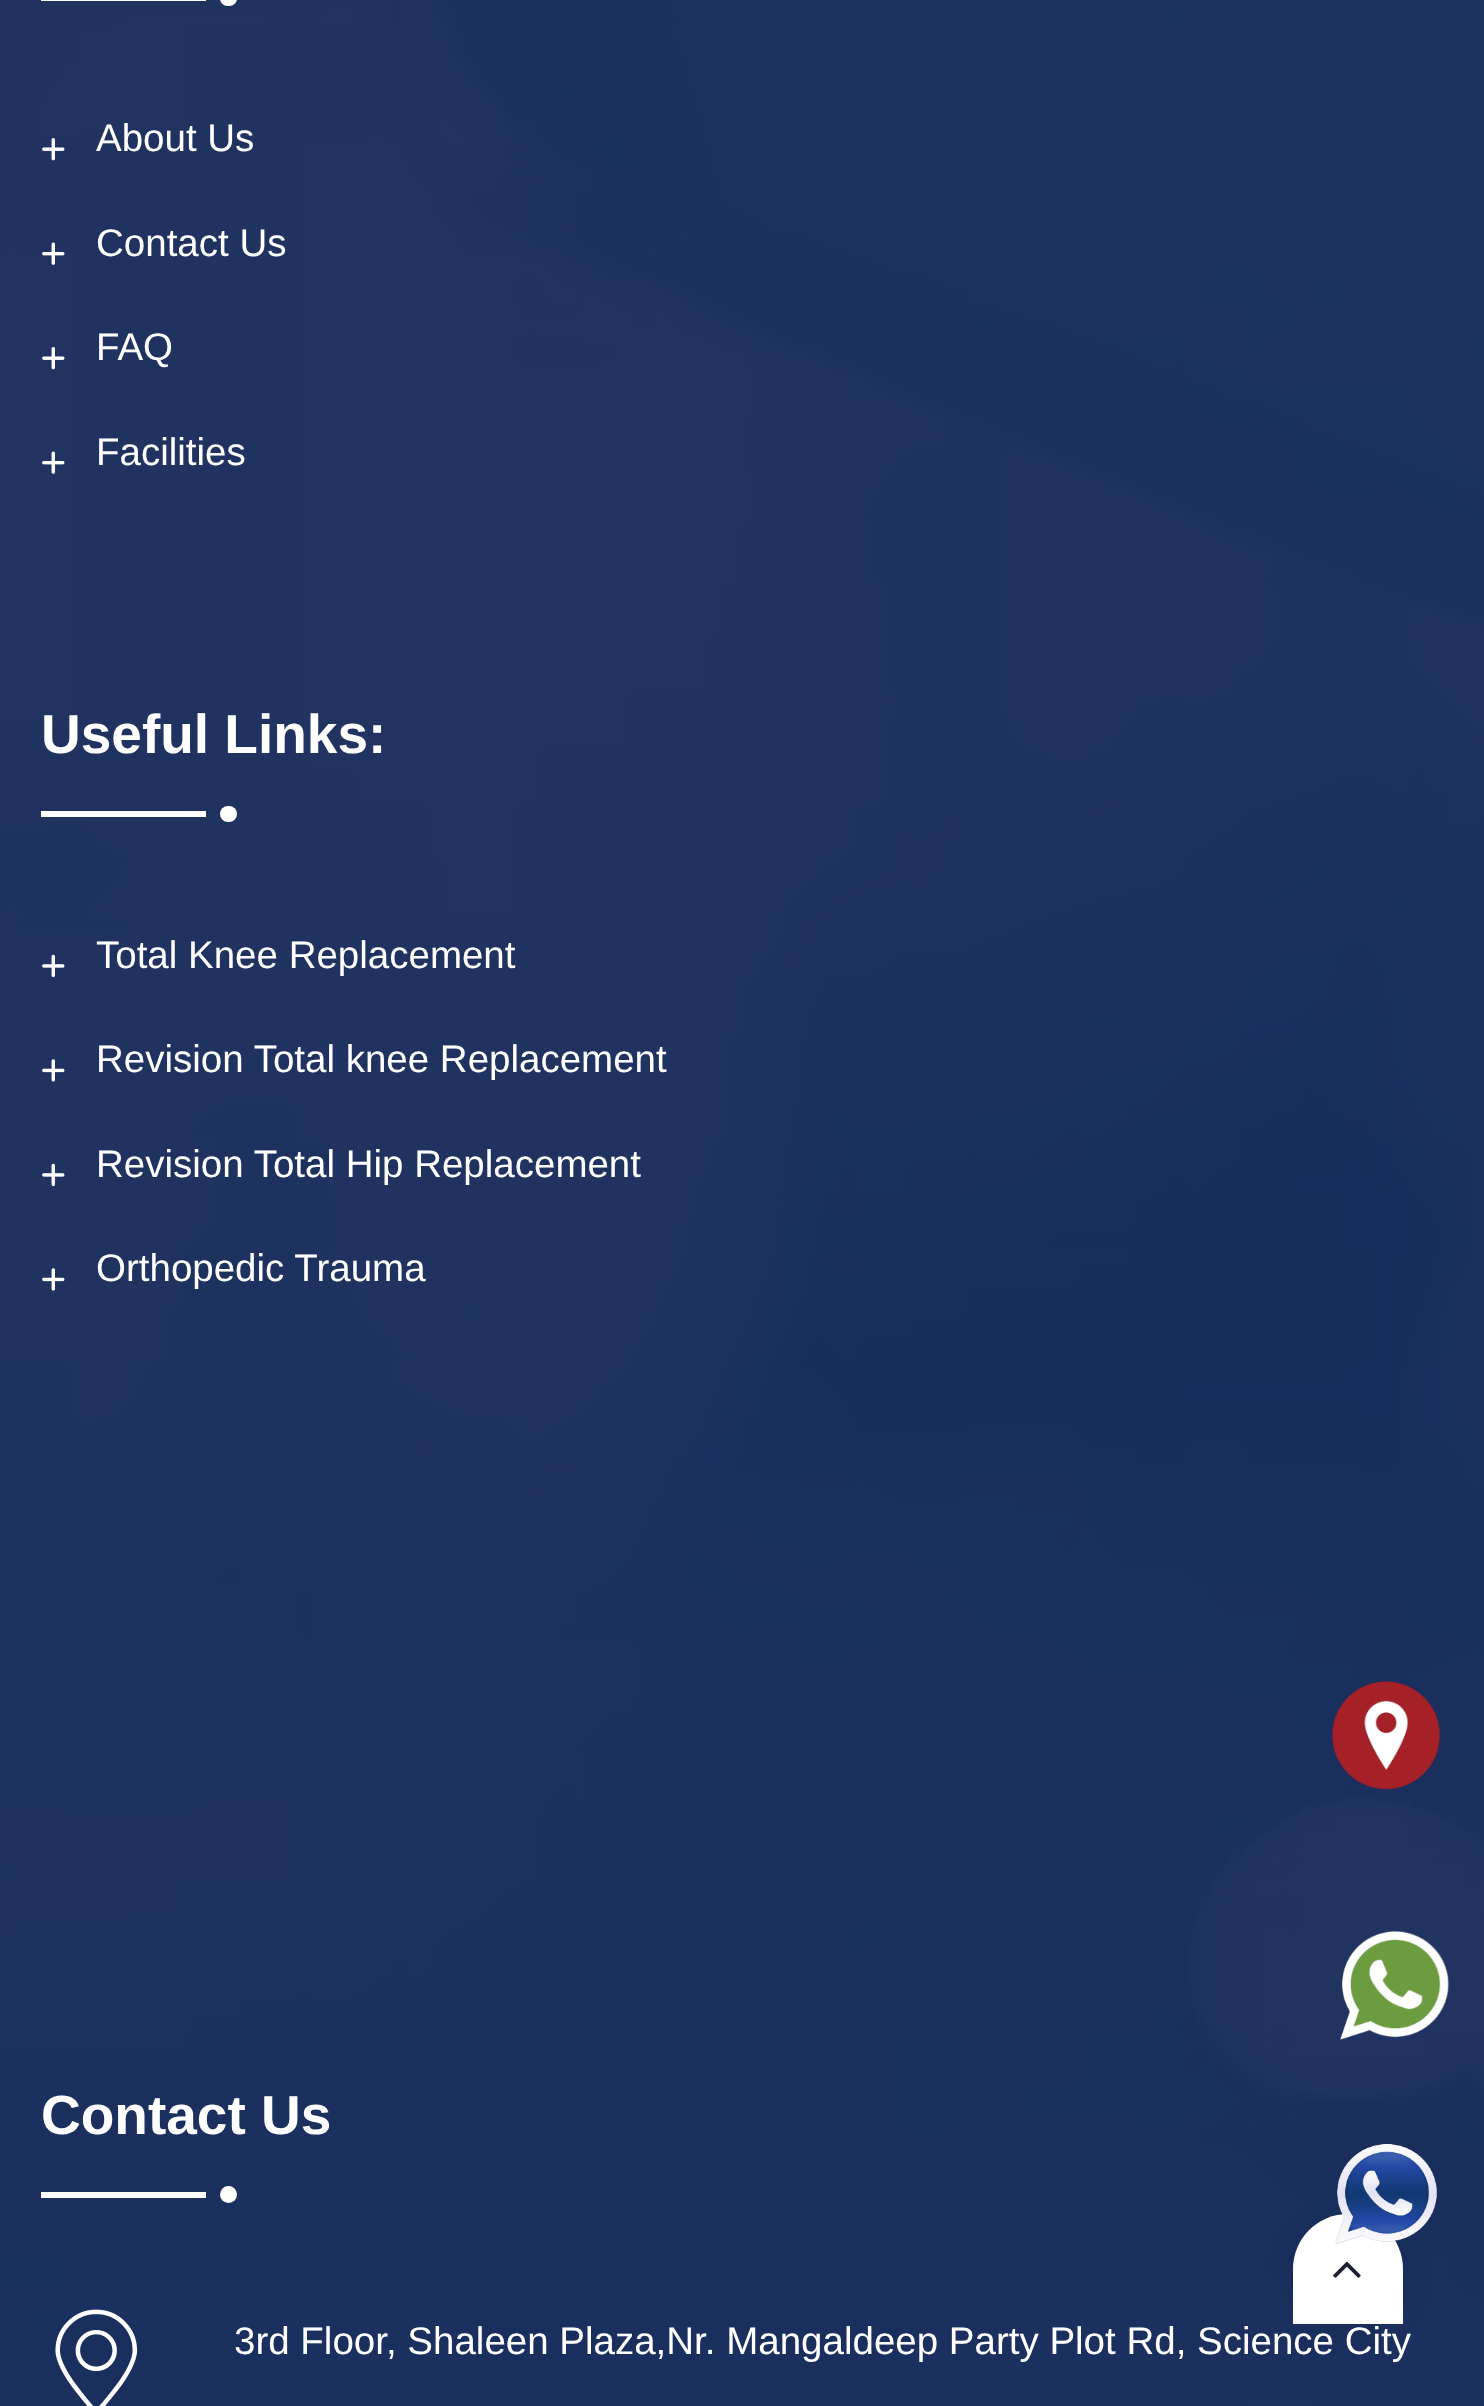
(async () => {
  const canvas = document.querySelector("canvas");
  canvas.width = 1484;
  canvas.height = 2406;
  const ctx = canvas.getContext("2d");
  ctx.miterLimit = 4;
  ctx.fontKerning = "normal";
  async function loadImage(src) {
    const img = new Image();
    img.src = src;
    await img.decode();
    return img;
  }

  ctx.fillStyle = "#ffffff";
  ctx.fillRect(0, 0, 1484, 2406);
  ctx.drawImage(await loadImage("img/1.png"), 0, 0, 1484, 2406);
  ctx.fillRect(41, 0, 165, 1);
  ctx.beginPath();
  ctx.roundRect(220, -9, 17, 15, 8.5);
  ctx.fill();
  ctx.drawImage(await loadImage("img/2.png"), 42, 138, 23, 23);
  ctx.drawImage(await loadImage("img/3.png"), 42, 242, 23, 23);
  ctx.drawImage(await loadImage("img/4.png"), 42, 347, 23, 23);
  ctx.drawImage(await loadImage("img/5.png"), 42, 451, 23, 23);
  ctx.fillRect(41, 811, 165, 6);
  ctx.beginPath();
  ctx.roundRect(220, 806, 17, 16, 8);
  ctx.fill();
  ctx.drawImage(await loadImage("img/6.png"), 42, 954, 23, 24);
  ctx.drawImage(await loadImage("img/7.png"), 42, 1059, 23, 23);
  ctx.drawImage(await loadImage("img/8.png"), 42, 1163, 23, 24);
  ctx.drawImage(await loadImage("img/9.png"), 42, 1268, 23, 23);
  ctx.fillRect(41, 2192, 165, 6);
  ctx.beginPath();
  ctx.arc(228.5, 2194.5, 8.5, 0, Math.PI * 2);
  ctx.fill();
  ctx.drawImage(await loadImage("img/10.png"), 55, 2309, 83, 97);
  ctx.fillStyle = "rgba(0, 0, 0, 0.1)";
  ctx.filter = "blur(14px)";
  ctx.beginPath();
  ctx.roundRect(1293, 2222, 110, 110, 55);
  ctx.fill();
  ctx.filter = "none";
  ctx.fillStyle = "#ffffff";
  ctx.beginPath();
  ctx.roundRect(1293, 2214, 110, 110, [55, 55, 0, 0]);
  ctx.fill();
  ctx.drawImage(await loadImage("img/11.png"), 1333, 2261, 28, 17);
  ctx.drawImage(await loadImage("img/12.png"), 1331, 1681, 110, 109);
  ctx.drawImage(await loadImage("img/13.png"), 1340, 1930, 109, 110);
  ctx.drawImage(await loadImage("img/14.png"), 1335, 2143, 102, 101);
  ctx.font = "38.5px Liberation Sans";
  for (const [text, x, y] of [
    ["About Us", 96, 151],
    ["Contact Us", 96, 256],
    ["FAQ", 96, 360],
    ["Facilities", 96, 465],
  ]) {
    ctx.fillText(text, x, y);
  }
  ctx.font = "bold 55px Liberation Sans";
  ctx.fillText("Useful Links:", 41, 753);
  ctx.font = "38.5px Liberation Sans";
  for (const [text, x, y] of [
    ["Total Knee Replacement", 96, 968],
    ["Revision Total knee Replacement", 96, 1072],
    ["Revision Total Hip Replacement", 96, 1177],
    ["Orthopedic Trauma", 96, 1281],
  ]) {
    ctx.fillText(text, x, y);
  }
  ctx.font = "bold 55px Liberation Sans";
  ctx.fillText("Contact Us", 41, 2134);
  ctx.font = "38.5px Liberation Sans";
  ctx.fillText("3rd Floor, Shaleen Plaza,Nr. Mangaldeep Party Plot Rd, Science City", 234, 2354);
})();
